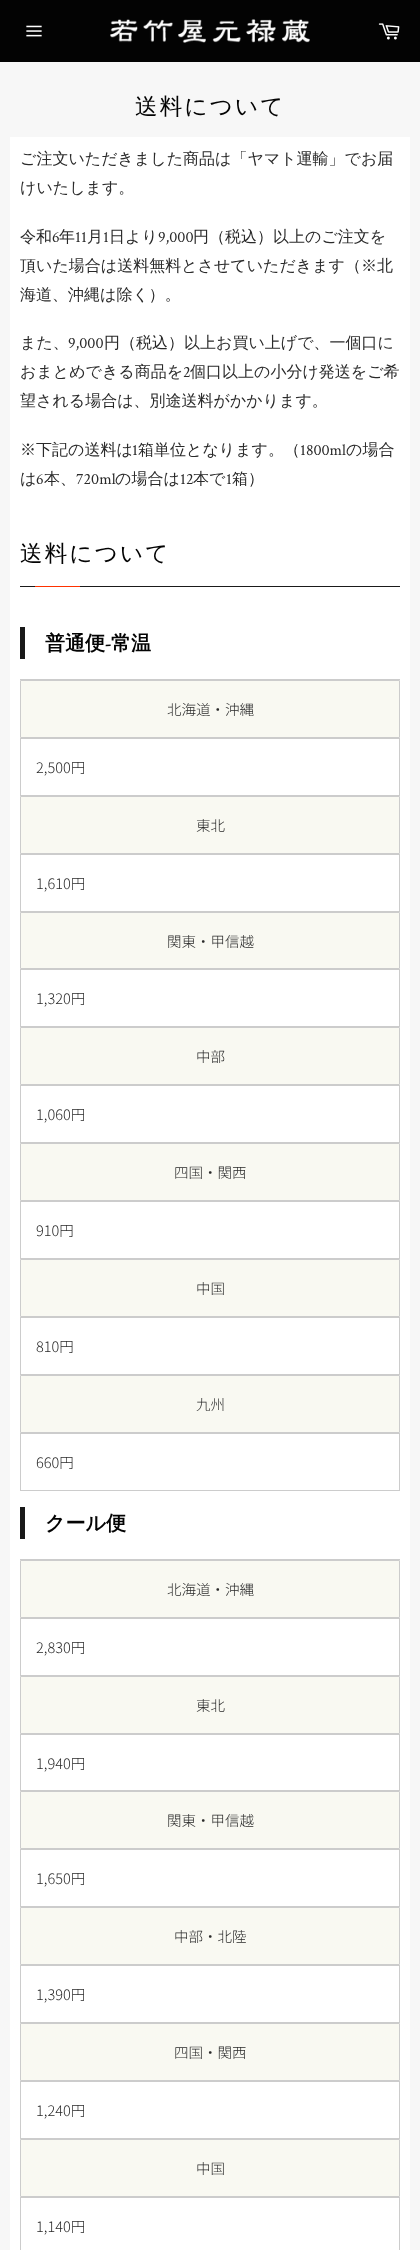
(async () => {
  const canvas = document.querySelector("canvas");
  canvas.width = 420;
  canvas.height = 2250;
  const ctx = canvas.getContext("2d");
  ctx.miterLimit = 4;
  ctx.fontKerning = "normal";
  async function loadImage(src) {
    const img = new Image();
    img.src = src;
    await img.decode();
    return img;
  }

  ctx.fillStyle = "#f7f7f7";
  ctx.fillRect(0, 0, 420, 2250);
  ctx.fillStyle = "#030303";
  ctx.fillRect(0, 0, 420, 62);
  ctx.drawImage(await loadImage("img/1.png"), 26, 25, 16, 12);
  ctx.drawImage(await loadImage("img/2.png"), 110, 19, 200, 24);
  ctx.drawImage(await loadImage("img/3.png"), 378, 23, 22, 17);
  for (const [x, y, w, h, color] of [
    [10, 137, 400, 2113, "#ffffff"],
    [20, 586, 380, 1, "#1a1a1a"],
    [35, 586, 45, 1, "#fe3200"],
    [20, 627, 5, 32, "#191919"],
    [20, 679, 380, 1, "#cccccc"],
  ]) {
    ctx.fillStyle = color;
    ctx.fillRect(x, y, w, h);
  }
  ctx.fillStyle = "#f9f9f2";
  ctx.beginPath();
  ctx.rect(20.5, 680.5, 379, 57);
  ctx.fill();
  ctx.strokeStyle = "#cccccc";
  ctx.stroke();
  ctx.strokeRect(20.5, 738.5, 379, 57);
  ctx.beginPath();
  ctx.rect(20.5, 796.5, 379, 57);
  ctx.fill();
  ctx.stroke();
  ctx.strokeRect(20.5, 854.5, 379, 57);
  ctx.beginPath();
  ctx.rect(20.5, 912.5, 379, 56);
  ctx.fill();
  ctx.stroke();
  ctx.strokeRect(20.5, 969.5, 379, 57);
  ctx.beginPath();
  ctx.rect(20.5, 1027.5, 379, 57);
  ctx.fill();
  ctx.stroke();
  ctx.strokeRect(20.5, 1085.5, 379, 57);
  ctx.beginPath();
  ctx.rect(20.5, 1143.5, 379, 57);
  ctx.fill();
  ctx.stroke();
  ctx.strokeRect(20.5, 1201.5, 379, 57);
  ctx.beginPath();
  ctx.rect(20.5, 1259.5, 379, 57);
  ctx.fill();
  ctx.stroke();
  ctx.strokeRect(20.5, 1317.5, 379, 57);
  ctx.beginPath();
  ctx.rect(20.5, 1375.5, 379, 57);
  ctx.fill();
  ctx.stroke();
  ctx.strokeRect(20.5, 1433.5, 379, 57);
  ctx.fillStyle = "#191919";
  ctx.fillRect(20, 1507, 5, 32);
  ctx.fillStyle = "#cccccc";
  ctx.fillRect(20, 1559, 380, 1);
  ctx.fillStyle = "#f9f9f2";
  ctx.beginPath();
  ctx.rect(20.5, 1560.5, 379, 57);
  ctx.fill();
  ctx.stroke();
  ctx.strokeRect(20.5, 1618.5, 379, 57);
  ctx.beginPath();
  ctx.rect(20.5, 1676.5, 379, 57);
  ctx.fill();
  ctx.stroke();
  ctx.strokeRect(20.5, 1734.5, 379, 56);
  ctx.beginPath();
  ctx.rect(20.5, 1791.5, 379, 57);
  ctx.fill();
  ctx.stroke();
  ctx.strokeRect(20.5, 1849.5, 379, 57);
  ctx.beginPath();
  ctx.rect(20.5, 1907.5, 379, 57);
  ctx.fill();
  ctx.stroke();
  ctx.strokeRect(20.5, 1965.5, 379, 57);
  ctx.beginPath();
  ctx.rect(20.5, 2023.5, 379, 57);
  ctx.fill();
  ctx.stroke();
  ctx.strokeRect(20.5, 2081.5, 379, 57);
  ctx.beginPath();
  ctx.rect(20.5, 2139.5, 379, 57);
  ctx.fill();
  ctx.stroke();
  ctx.strokeRect(20.5, 2197.5, 379, 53);
  ctx.letterSpacing = "2.25px";
  ctx.font = "500 22.5px WenQuanYi Zen Hei";
  ctx.fillStyle = "#030303";
  ctx.fillText("送料について", 135, 114);
  ctx.letterSpacing = "0px";
  ctx.font = "500 16px WenQuanYi Zen Hei";
  ctx.fillStyle = "#2a2a2a";
  for (const [text, x, y] of [
    ["ご注文いただきました商品は「ヤマト運輸」でお届", 20, 164],
    ["けいたします。", 20, 193],
    ["令和", 20, 242],
  ]) {
    ctx.fillText(text, x, y);
  }
  ctx.font = "16px Crimson Text";
  ctx.fillText("6", 52, 242);
  ctx.font = "500 16px WenQuanYi Zen Hei";
  ctx.fillText("年", 59, 242);
  ctx.font = "16px Crimson Text";
  ctx.fillText("11", 75, 242);
  ctx.font = "500 16px WenQuanYi Zen Hei";
  ctx.fillText("月", 87, 242);
  ctx.font = "16px Crimson Text";
  ctx.fillText("1", 103, 242);
  ctx.font = "500 16px WenQuanYi Zen Hei";
  ctx.fillText("日より", 109, 242);
  ctx.font = "16px Crimson Text";
  ctx.fillText("9,000", 158, 242);
  ctx.font = "500 16px WenQuanYi Zen Hei";
  for (const [text, x, y] of [
    ["円（税込）以上のご注文を", 193, 242],
    ["頂いた場合は送料無料とさせていただきます（※北", 20, 271],
    ["海道、沖縄は除く）。", 20, 300],
    ["また、", 20, 348],
  ]) {
    ctx.fillText(text, x, y);
  }
  ctx.font = "16px Crimson Text";
  ctx.fillText("9,000", 68, 348);
  ctx.font = "500 16px WenQuanYi Zen Hei";
  ctx.fillText("円（税込）以上お買い上げで、一個口に", 104, 348);
  ctx.fillText("おまとめできる商品を", 20, 377);
  ctx.font = "16px Crimson Text";
  ctx.fillText("2", 183, 377);
  ctx.font = "500 16px WenQuanYi Zen Hei";
  for (const [text, x, y] of [
    ["個口以上の小分け発送をご希", 190, 377],
    ["望される場合は、別途送料がかかります。", 20, 406],
    ["※下記の送料は", 20, 455],
  ]) {
    ctx.fillText(text, x, y);
  }
  ctx.font = "16px Crimson Text";
  ctx.fillText("1", 132, 455);
  ctx.font = "500 16px WenQuanYi Zen Hei";
  ctx.fillText("箱単位となります。（", 138, 455);
  ctx.font = "16px Crimson Text";
  ctx.fillText("1800ml", 300, 455);
  ctx.font = "500 16px WenQuanYi Zen Hei";
  ctx.fillText("の場合", 346, 455);
  ctx.fillText("は", 20, 484);
  ctx.font = "16px Crimson Text";
  ctx.fillText("6", 36, 484);
  ctx.font = "500 16px WenQuanYi Zen Hei";
  ctx.fillText("本、", 44, 484);
  ctx.font = "16px Crimson Text";
  ctx.fillText("720ml", 76, 484);
  ctx.font = "500 16px WenQuanYi Zen Hei";
  ctx.fillText("の場合は", 115, 484);
  ctx.font = "16px Crimson Text";
  ctx.fillText("12", 180, 484);
  ctx.font = "500 16px WenQuanYi Zen Hei";
  ctx.fillText("本で", 193, 484);
  ctx.font = "16px Crimson Text";
  ctx.fillText("1", 226, 484);
  ctx.font = "500 16px WenQuanYi Zen Hei";
  ctx.fillText("箱）", 232, 484);
  ctx.letterSpacing = "2.25px";
  ctx.font = "500 22.5px WenQuanYi Zen Hei";
  ctx.fillStyle = "#030303";
  ctx.fillText("送料について", 20, 561);
  ctx.letterSpacing = "0px";
  ctx.font = "bold 20px WenQuanYi Zen Hei";
  ctx.fillText("普通便", 45, 650);
  ctx.font = "bold 20px Crimson Text";
  ctx.fillText("-", 105, 650);
  ctx.font = "bold 20px WenQuanYi Zen Hei";
  ctx.fillText("常温", 111, 650);
  ctx.font = "300 14.5px Noto Sans JP";
  ctx.fillStyle = "#2a2a2a";
  for (const [text, x, y] of [
    ["北海道・沖縄", 167, 715],
    ["2,500円", 36, 773],
    ["東北", 196, 831],
    ["1,610円", 36, 889],
    ["関東・甲信越", 167, 947],
    ["1,320円", 36, 1004],
    ["中部", 196, 1062],
    ["1,060円", 36, 1120],
    ["四国・関西", 174, 1178],
    ["910円", 36, 1236],
    ["中国", 196, 1294],
    ["810円", 36, 1352],
    ["九州", 196, 1410],
    ["660円", 36, 1468],
  ]) {
    ctx.fillText(text, x, y);
  }
  ctx.font = "bold 20px WenQuanYi Zen Hei";
  ctx.fillStyle = "#030303";
  ctx.fillText("クール便", 45, 1530);
  ctx.font = "300 14.5px Noto Sans JP";
  ctx.fillStyle = "#2a2a2a";
  for (const [text, x, y] of [
    ["北海道・沖縄", 167, 1595],
    ["2,830円", 36, 1653],
    ["東北", 196, 1711],
    ["1,940円", 36, 1769],
    ["関東・甲信越", 167, 1826],
    ["1,650円", 36, 1884],
    ["中部・北陸", 174, 1942],
    ["1,390円", 36, 2000],
    ["四国・関西", 174, 2058],
    ["1,240円", 36, 2116],
    ["中国", 196, 2174],
    ["1,140円", 36, 2232],
  ]) {
    ctx.fillText(text, x, y);
  }
})();
